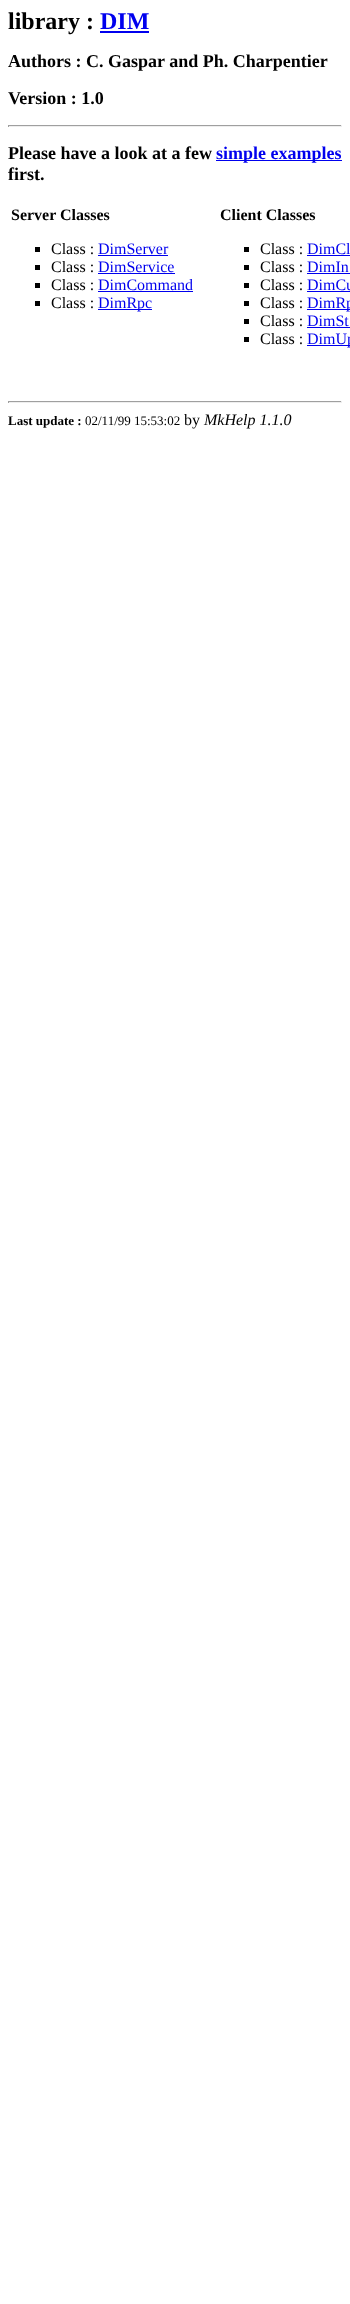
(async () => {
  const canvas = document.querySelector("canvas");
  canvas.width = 350;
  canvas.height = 2304;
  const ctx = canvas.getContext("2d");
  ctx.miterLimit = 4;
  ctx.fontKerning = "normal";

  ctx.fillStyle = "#ffffff";
  ctx.fillRect(0, 0, 350, 2304);
  for (const [x, y, w, h, color] of [
    [100, 31, 49, 2, "#0000ee"],
    [8, 125, 334, 1, "#9f9f9f"],
    [341, 125, 1, 2, "#eeeeee"],
    [8, 126, 334, 1, "#eeeeee"],
    [8, 125, 1, 2, "#9f9f9f"],
    [216, 160, 126, 1, "#0000ee"],
    [35, 247, 5, 5, "#000000"],
    [98, 255, 70, 1, "#0000ee"],
    [35, 265, 5, 5, "#000000"],
    [98, 273, 77, 1, "#0000ee"],
    [35, 283, 5, 5, "#000000"],
    [98, 291, 95, 1, "#0000ee"],
    [35, 301, 5, 5, "#000000"],
    [98, 309, 54, 1, "#0000ee"],
    [244, 247, 5, 5, "#000000"],
    [307, 255, 43, 1, "#0000ee"],
    [244, 265, 5, 5, "#000000"],
    [307, 273, 43, 1, "#0000ee"],
    [244, 283, 5, 5, "#000000"],
    [307, 291, 43, 1, "#0000ee"],
    [244, 301, 5, 5, "#000000"],
    [307, 309, 43, 1, "#0000ee"],
    [244, 319, 5, 5, "#000000"],
    [307, 327, 43, 1, "#0000ee"],
    [244, 337, 5, 5, "#000000"],
    [307, 345, 43, 1, "#0000ee"],
    [8, 401, 334, 1, "#9f9f9f"],
    [341, 401, 1, 2, "#eeeeee"],
    [8, 402, 334, 1, "#eeeeee"],
    [8, 401, 1, 2, "#9f9f9f"],
  ]) {
    ctx.fillStyle = color;
    ctx.fillRect(x, y, w, h);
  }
  ctx.font = "bold 24px Liberation Serif";
  ctx.fillStyle = "#000000";
  ctx.fillText("library :", 8, 29);
  ctx.fillStyle = "#0000ee";
  ctx.fillText("DIM", 100, 29);
  ctx.font = "bold 18px Liberation Serif";
  ctx.fillStyle = "#000000";
  for (const [text, x, y] of [
    ["Authors : C. Gaspar and Ph. Charpentier", 8, 67],
    ["Version : 1.0", 8, 104],
    ["Please have a look at a few", 8, 159],
  ]) {
    ctx.fillText(text, x, y);
  }
  ctx.fillStyle = "#0000ee";
  ctx.fillText("simple examples", 216, 159);
  ctx.fillStyle = "#000000";
  ctx.fillText("first.", 8, 180);
  ctx.font = "bold 16px Liberation Serif";
  ctx.fillText("Server Classes", 11, 220);
  ctx.font = "16px Liberation Serif";
  ctx.fillText("Class :", 51, 254);
  ctx.fillStyle = "#0000ee";
  ctx.fillText("DimServer", 98, 254);
  ctx.fillStyle = "#000000";
  ctx.fillText("Class :", 51, 272);
  ctx.fillStyle = "#0000ee";
  ctx.fillText("DimService", 98, 272);
  ctx.fillStyle = "#000000";
  ctx.fillText("Class :", 51, 290);
  ctx.fillStyle = "#0000ee";
  ctx.fillText("DimCommand", 98, 290);
  ctx.fillStyle = "#000000";
  ctx.fillText("Class :", 51, 308);
  ctx.fillStyle = "#0000ee";
  ctx.fillText("DimRpc", 98, 308);
  ctx.font = "bold 16px Liberation Serif";
  ctx.fillStyle = "#000000";
  ctx.fillText("Client Classes", 220, 220);
  ctx.font = "16px Liberation Serif";
  ctx.fillText("Class :", 260, 254);
  ctx.fillStyle = "#0000ee";
  ctx.fillText("DimCl", 307, 254);
  ctx.fillStyle = "#000000";
  ctx.fillText("Class :", 260, 272);
  ctx.fillStyle = "#0000ee";
  ctx.fillText("DimIn", 307, 272);
  ctx.fillStyle = "#000000";
  ctx.fillText("Class :", 260, 290);
  ctx.fillStyle = "#0000ee";
  ctx.fillText("DimCu", 307, 290);
  ctx.fillStyle = "#000000";
  ctx.fillText("Class :", 260, 308);
  ctx.fillStyle = "#0000ee";
  ctx.fillText("DimRp", 307, 308);
  ctx.fillStyle = "#000000";
  ctx.fillText("Class :", 260, 326);
  ctx.fillStyle = "#0000ee";
  ctx.fillText("DimSt", 307, 326);
  ctx.fillStyle = "#000000";
  ctx.fillText("Class :", 260, 344);
  ctx.fillStyle = "#0000ee";
  ctx.fillText("DimUp", 307, 344);
  ctx.font = "bold 13px Liberation Serif";
  ctx.fillStyle = "#000000";
  ctx.fillText("Last update :", 8, 425);
  ctx.font = "13px Liberation Serif";
  ctx.fillText("02/11/99 15:53:02", 85, 425);
  ctx.font = "16px Liberation Serif";
  ctx.fillText("by", 184, 425);
  ctx.font = "italic 16px Liberation Serif";
  ctx.fillText("MkHelp 1.1.0", 204, 425);
})();
